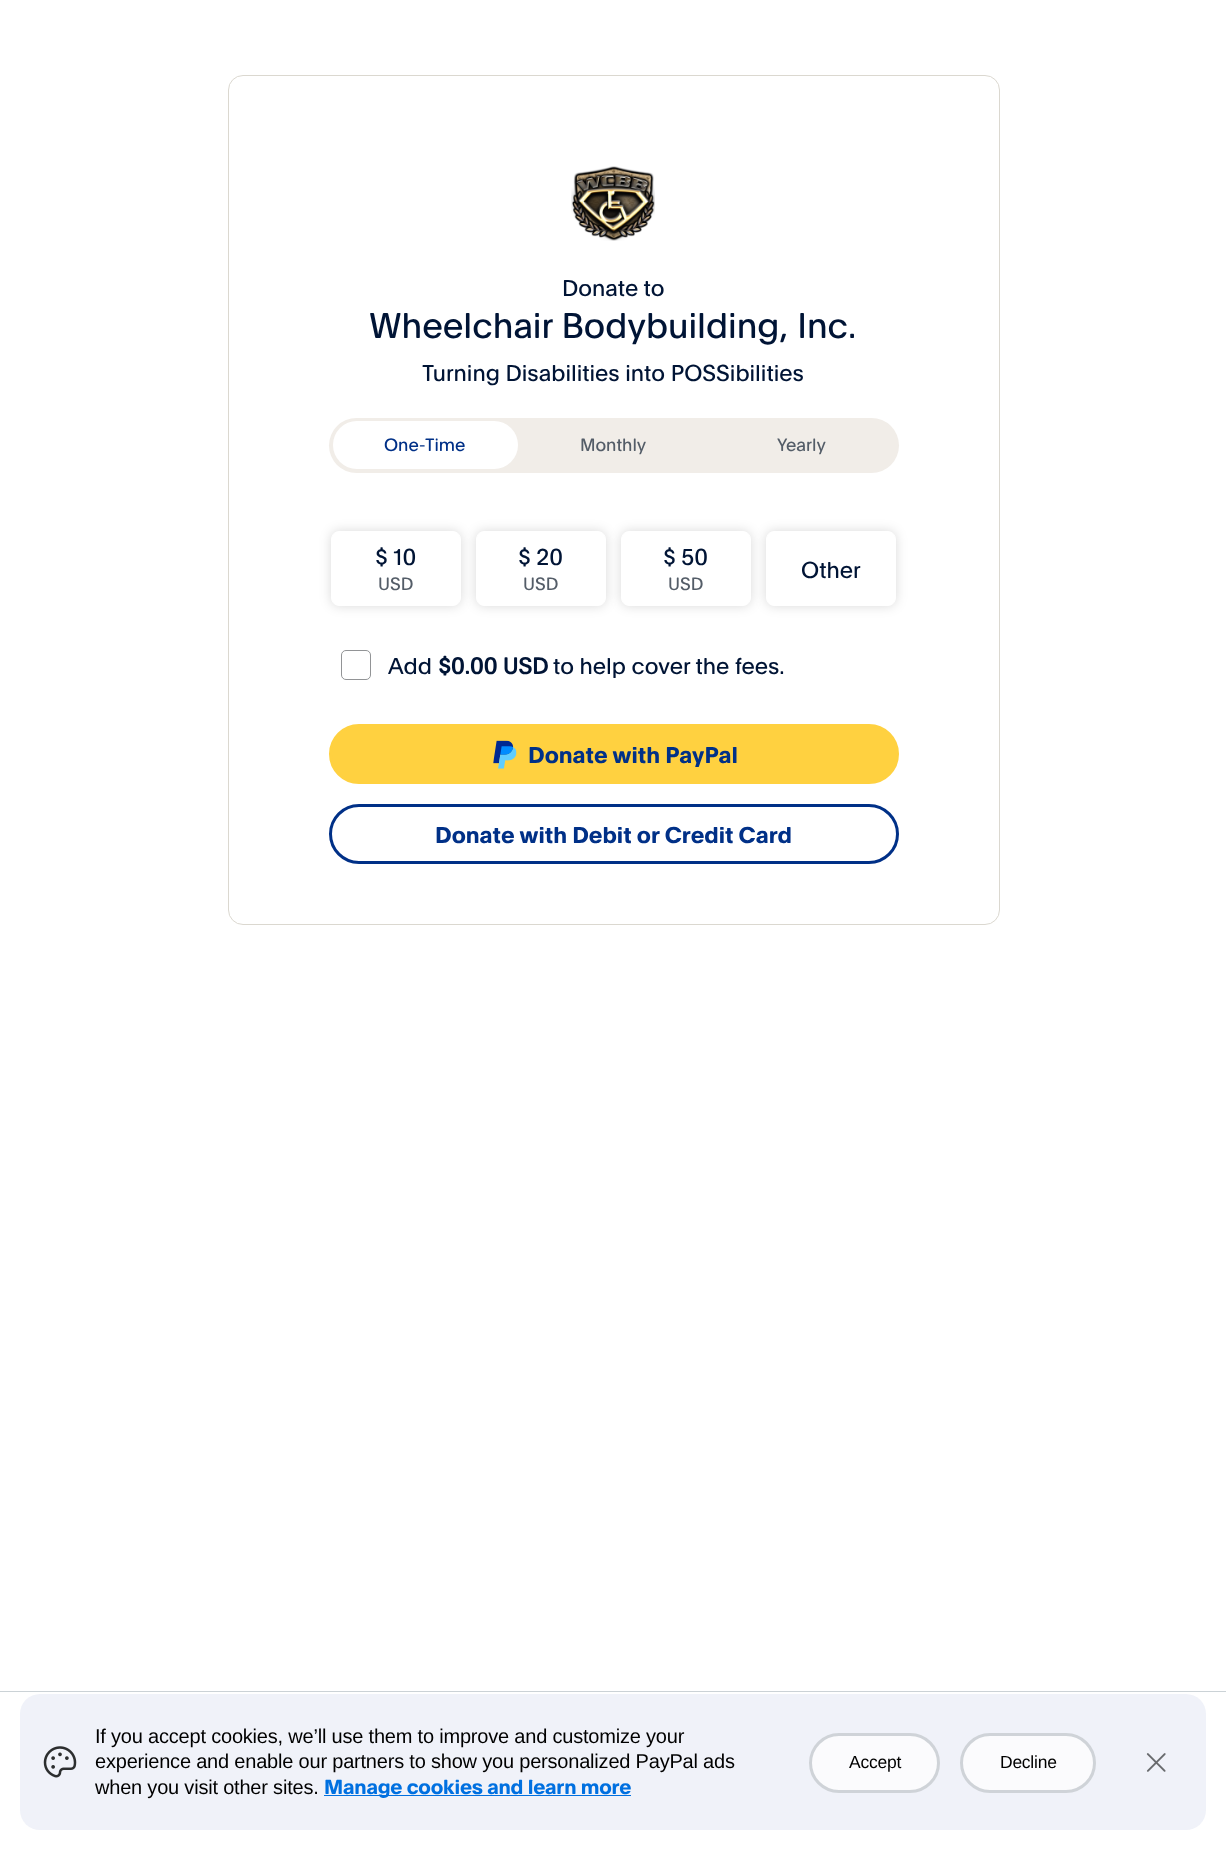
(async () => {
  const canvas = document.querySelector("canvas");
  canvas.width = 1226;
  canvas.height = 1850;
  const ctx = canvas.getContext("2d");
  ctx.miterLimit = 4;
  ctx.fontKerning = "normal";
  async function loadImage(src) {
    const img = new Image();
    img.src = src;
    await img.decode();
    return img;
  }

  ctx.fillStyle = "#ffffff";
  ctx.fillRect(0, 0, 1226, 1850);
  ctx.beginPath();
  ctx.roundRect(228.5, 75.5, 771, 849, 14.5);
  ctx.strokeStyle = "#dbd8d0";
  ctx.stroke();
  ctx.drawImage(await loadImage("img/1.png"), 571, 166, 84, 75);
  ctx.fillStyle = "#f1ede8";
  ctx.beginPath();
  ctx.roundRect(329, 418, 570, 55, 27.5);
  ctx.fill();
  ctx.fillStyle = "#ffffff";
  ctx.beginPath();
  ctx.roundRect(333, 421, 185, 48, 24);
  ctx.fill();
  ctx.fillStyle = "rgba(0, 0, 0, 0.15)";
  ctx.filter = "blur(6px)";
  ctx.beginPath();
  ctx.roundRect(331, 531, 130, 75, 8);
  ctx.fill();
  ctx.filter = "none";
  ctx.fillStyle = "#ffffff";
  ctx.beginPath();
  ctx.roundRect(331.5, 531.5, 129, 74, 7.5);
  ctx.fill();
  ctx.strokeStyle = "#ffffff";
  ctx.stroke();
  ctx.fillStyle = "rgba(0, 0, 0, 0.15)";
  ctx.filter = "blur(6px)";
  ctx.beginPath();
  ctx.roundRect(476, 531, 130, 75, 8);
  ctx.fill();
  ctx.filter = "none";
  ctx.fillStyle = "#ffffff";
  ctx.beginPath();
  ctx.roundRect(476.5, 531.5, 129, 74, 7.5);
  ctx.fill();
  ctx.stroke();
  ctx.fillStyle = "rgba(0, 0, 0, 0.15)";
  ctx.filter = "blur(6px)";
  ctx.beginPath();
  ctx.roundRect(621, 531, 130, 75, 8);
  ctx.fill();
  ctx.filter = "none";
  ctx.fillStyle = "#ffffff";
  ctx.beginPath();
  ctx.roundRect(621.5, 531.5, 129, 74, 7.5);
  ctx.fill();
  ctx.stroke();
  ctx.fillStyle = "rgba(0, 0, 0, 0.15)";
  ctx.filter = "blur(6px)";
  ctx.beginPath();
  ctx.roundRect(766, 531, 130, 75, 8);
  ctx.fill();
  ctx.filter = "none";
  ctx.fillStyle = "#ffffff";
  ctx.beginPath();
  ctx.roundRect(766.5, 531.5, 129, 74, 7.5);
  ctx.fill();
  ctx.stroke();
  ctx.beginPath();
  ctx.roundRect(341.5, 650.5, 29, 29, 4.5);
  ctx.strokeStyle = "#929496";
  ctx.stroke();
  ctx.fillStyle = "#ffd140";
  ctx.beginPath();
  ctx.roundRect(330.5, 725.5, 567, 57, 28.5);
  ctx.fill();
  ctx.strokeStyle = "#ffd140";
  ctx.lineWidth = 3;
  ctx.stroke();
  ctx.drawImage(await loadImage("img/2.png"), 493, 740, 24, 29);
  ctx.beginPath();
  ctx.roundRect(330.5, 805.5, 567, 57, 28.5);
  ctx.strokeStyle = "#003087";
  ctx.stroke();
  ctx.fillStyle = "#cbd2d6";
  ctx.fillRect(0, 1691, 1226, 1);
  ctx.fillStyle = "#f0f2f9";
  ctx.beginPath();
  ctx.roundRect(20, 1694, 1186, 136, 20);
  ctx.fill();
  ctx.drawImage(await loadImage("img/3.png"), 43, 1746, 34, 32);
  ctx.fillStyle = "#0070e0";
  ctx.fillRect(324, 1795, 307, 1);
  ctx.fillStyle = "#fbfbfd";
  ctx.beginPath();
  ctx.roundRect(810.5, 1734.5, 128, 57, 28.5);
  ctx.fill();
  ctx.strokeStyle = "#cfd3d8";
  ctx.stroke();
  ctx.beginPath();
  ctx.roundRect(961.5, 1734.5, 133, 57, 28.5);
  ctx.fill();
  ctx.stroke();
  ctx.drawImage(await loadImage("img/4.png"), 1146, 1753, 20, 19);
  ctx.font = "22.5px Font";
  ctx.fillStyle = "#001435";
  ctx.fillText("Donate to", 562, 296);
  ctx.font = "35px Font";
  ctx.fillText("Wheelchair Bodybuilding, Inc.", 369, 338);
  ctx.font = "22.5px Font";
  ctx.fillText("Turning Disabilities into POSSibilities", 422, 381);
  ctx.font = "17.5px Font";
  ctx.fillStyle = "#003087";
  ctx.fillText("One-Time", 384, 451);
  ctx.fillStyle = "#545d68";
  ctx.fillText("Monthly", 580, 451);
  ctx.fillText("Yearly", 777, 451);
  ctx.font = "22.5px Font";
  ctx.fillStyle = "#001435";
  ctx.fillText("$ 10", 375, 565);
  ctx.font = "17.5px Font";
  ctx.fillStyle = "#545d68";
  ctx.fillText("USD", 378, 590);
  ctx.font = "22.5px Font";
  ctx.fillStyle = "#001435";
  ctx.fillText("$ 20", 518, 565);
  ctx.font = "17.5px Font";
  ctx.fillStyle = "#545d68";
  ctx.fillText("USD", 523, 590);
  ctx.font = "22.5px Font";
  ctx.fillStyle = "#001435";
  ctx.fillText("$ 50", 663, 565);
  ctx.font = "17.5px Font";
  ctx.fillStyle = "#545d68";
  ctx.fillText("USD", 668, 590);
  ctx.font = "22.5px Font";
  ctx.fillStyle = "#001435";
  ctx.fillText("Other", 801, 578);
  ctx.fillText("Add", 388, 674);
  ctx.font = "bold 22.5px Font";
  ctx.fillText("$0.00 USD", 438, 674);
  ctx.font = "22.5px Font";
  ctx.fillText("to help cover the fees.", 553, 674);
  ctx.font = "bold 22.5px 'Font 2'";
  ctx.fillStyle = "#003087";
  ctx.fillText("Donate with PayPal", 528, 763);
  ctx.fillText("Donate with Debit or Credit Card", 435, 843);
  ctx.letterSpacing = "-0.2px";
  ctx.font = "20px Liberation Sans";
  ctx.fillStyle = "#000000";
  for (const [text, x, y] of [
    ["If you accept cookies, we’ll use them to improve and customize your", 95, 1743],
    ["experience and enable our partners to show you personalized PayPal ads", 95, 1768],
    ["when you visit other sites.", 95, 1794],
  ]) {
    ctx.fillText(text, x, y);
  }
  ctx.font = "bold 20px 'Font 2'";
  ctx.fillStyle = "#0070e0";
  ctx.fillText("Manage cookies and learn more", 324, 1794);
  ctx.letterSpacing = "-0.25px";
  ctx.font = "17.5px Liberation Sans";
  ctx.fillStyle = "#000000";
  ctx.fillText("Accept", 849, 1768);
  ctx.fillText("Decline", 1000, 1768);
})();
